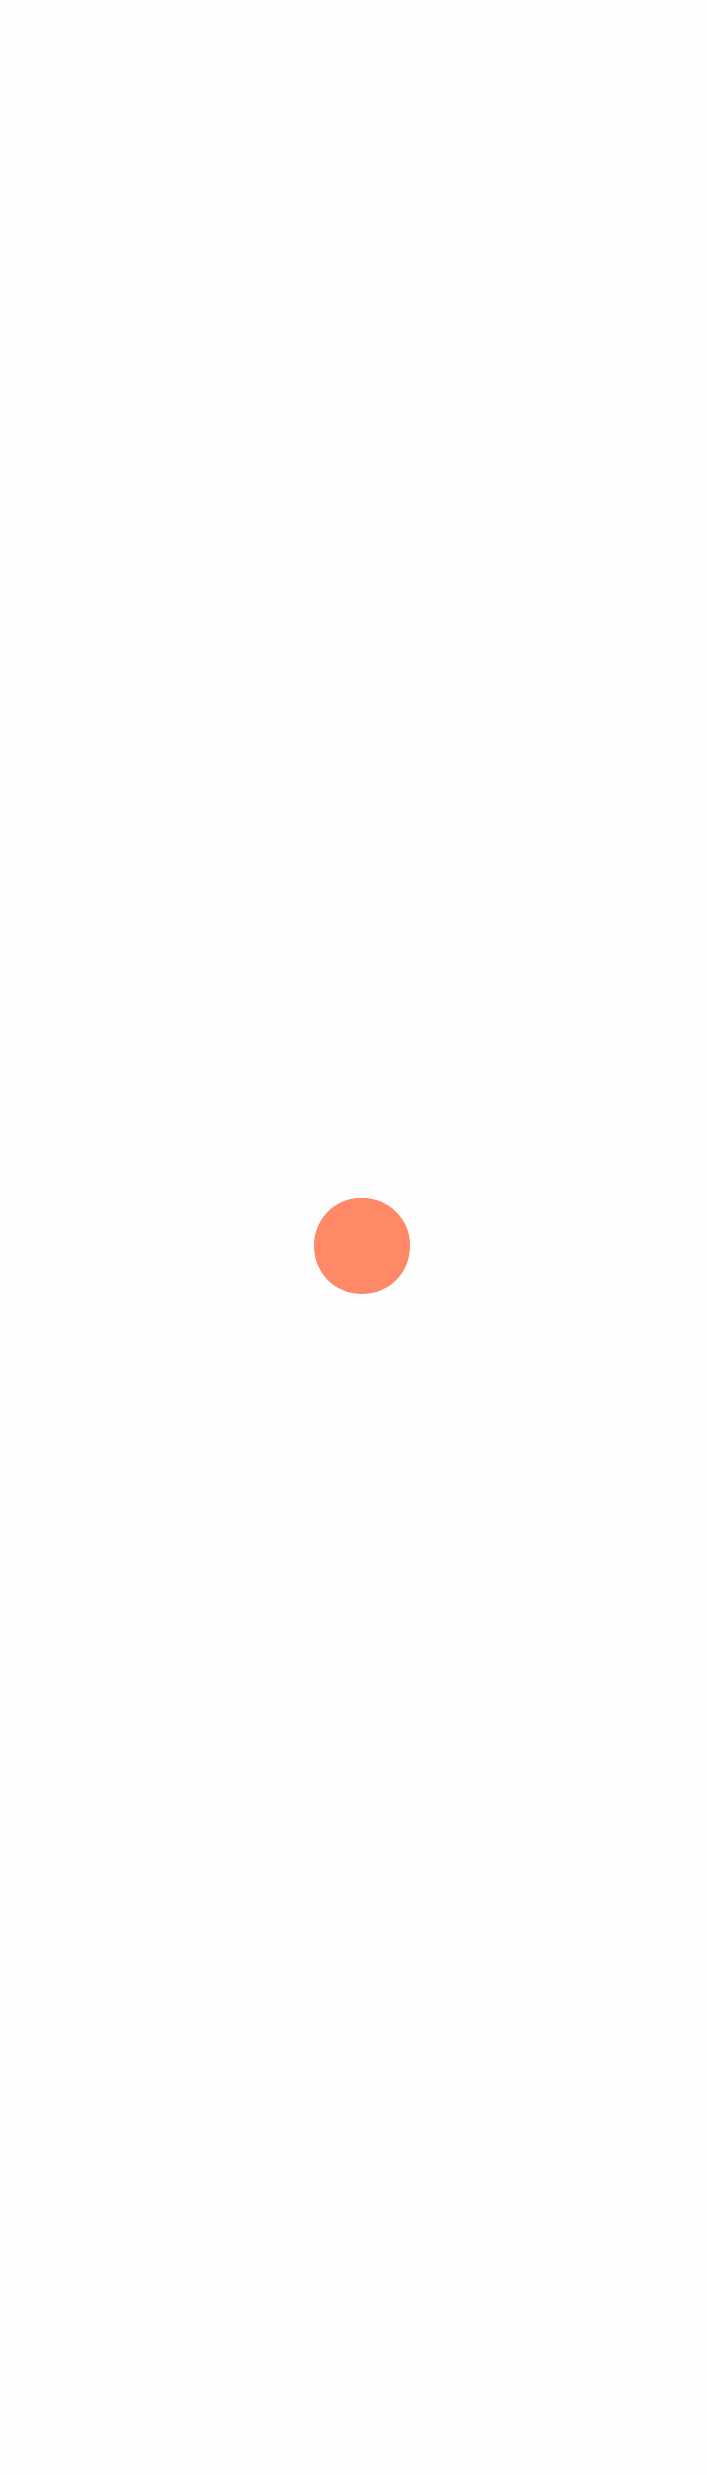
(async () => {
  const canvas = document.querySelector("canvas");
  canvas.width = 707;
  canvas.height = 2475;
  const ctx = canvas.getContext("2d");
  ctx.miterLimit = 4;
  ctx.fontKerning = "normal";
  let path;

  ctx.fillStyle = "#fefefe";
  ctx.fillRect(0, 0, 707, 2475);
  ctx.fillStyle = "#ff8866";
  path = new Path2D("M410 1246C410 1273 389 1294 362 1294C335 1294 314 1273 314 1246C314 1219 335 1198 362 1198C389 1198 410 1219 410 1246Z");
  ctx.fill(path);
  path = new Path2D("M410 1246C410 1199 348 1180 322 1219C317 1227 314 1236 314 1246Z");
  ctx.fill(path);
})();
